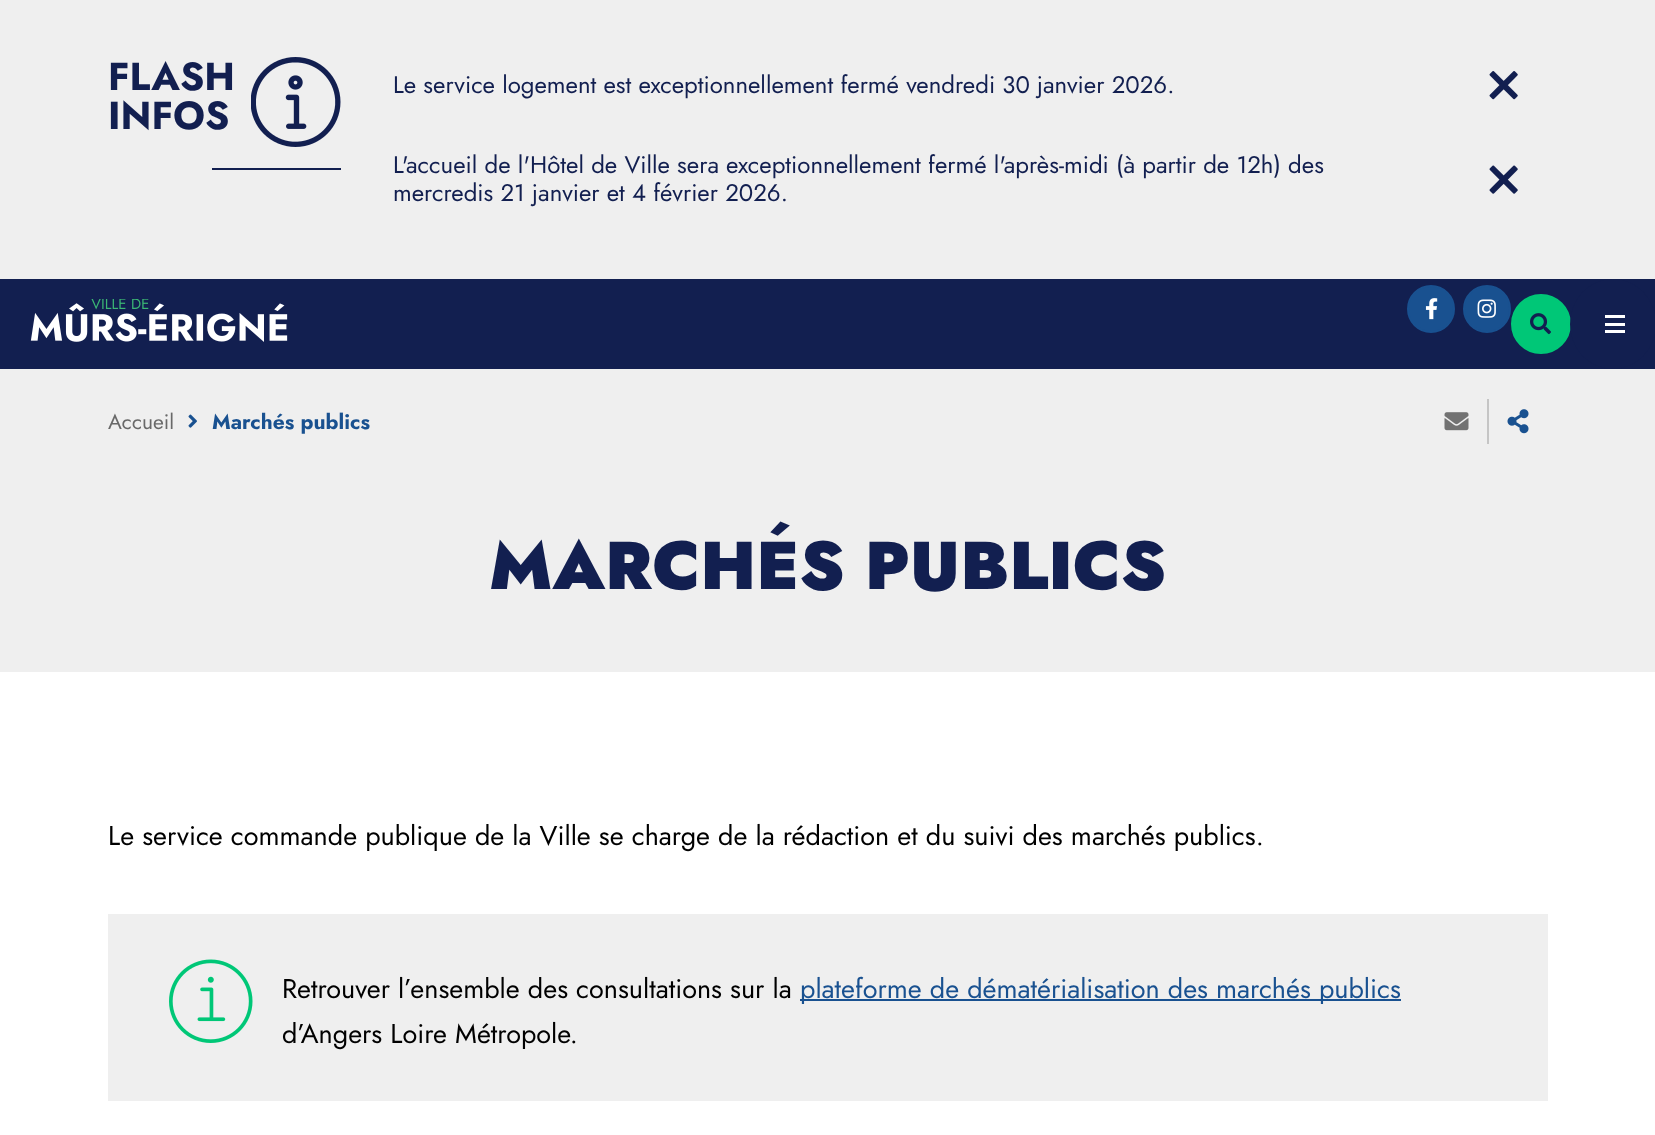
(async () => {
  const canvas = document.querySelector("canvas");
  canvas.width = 1655;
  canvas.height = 1135;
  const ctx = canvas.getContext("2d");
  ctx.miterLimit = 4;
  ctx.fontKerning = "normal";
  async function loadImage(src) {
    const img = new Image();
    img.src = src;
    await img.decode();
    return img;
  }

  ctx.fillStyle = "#ffffff";
  ctx.fillRect(0, 0, 1655, 1135);
  ctx.fillStyle = "#efefef";
  ctx.fillRect(0, 0, 1655, 279);
  ctx.drawImage(await loadImage("img/1.png"), 251, 57, 90, 90);
  ctx.fillStyle = "#121f50";
  ctx.fillRect(212, 168, 129, 2);
  ctx.drawImage(await loadImage("img/2.png"), 1489, 71, 29, 29);
  ctx.drawImage(await loadImage("img/3.png"), 1489, 165, 29, 29);
  ctx.fillRect(0, 279, 1655, 90);
  ctx.drawImage(await loadImage("img/4.png"), 30, 299, 258, 43);
  ctx.fillStyle = "#195190";
  ctx.beginPath();
  ctx.arc(1431, 309, 23, 0, Math.PI * 2);
  ctx.fill();
  ctx.strokeStyle = "#195190";
  ctx.lineWidth = 2;
  ctx.stroke();
  ctx.drawImage(await loadImage("img/5.png"), 1425, 298, 13, 22);
  ctx.beginPath();
  ctx.arc(1487, 309, 23, 0, Math.PI * 2);
  ctx.fill();
  ctx.stroke();
  ctx.drawImage(await loadImage("img/6.png"), 1477, 299, 19, 19);
  ctx.fillStyle = "#00c777";
  ctx.beginPath();
  ctx.arc(1541, 324, 29, 0, Math.PI * 2);
  ctx.fill();
  ctx.strokeStyle = "#00c777";
  ctx.stroke();
  ctx.drawImage(await loadImage("img/7.png"), 1530, 313, 21, 22);
  ctx.fillStyle = "#121f50";
  ctx.beginPath();
  ctx.ellipse(1613, 324, 43, 45, 0, 0, Math.PI * 2);
  ctx.fill();
  for (const [x, y, w, h, color] of [
    [1605, 315, 20, 3, "#ffffff"],
    [1605, 323, 20, 3, "#ffffff"],
    [1605, 330, 20, 3, "#ffffff"],
    [0, 369, 1655, 303, "#efefef"],
  ]) {
    ctx.fillStyle = color;
    ctx.fillRect(x, y, w, h);
  }
  ctx.drawImage(await loadImage("img/8.png"), 188, 414, 9, 14);
  ctx.drawImage(await loadImage("img/9.png"), 1444, 412, 25, 19);
  ctx.fillStyle = "#c5c5c5";
  ctx.fillRect(1487, 399, 2, 45);
  ctx.drawImage(await loadImage("img/10.png"), 1507, 409, 22, 25);
  ctx.fillStyle = "#efefef";
  ctx.fillRect(108, 914, 1440, 187);
  ctx.drawImage(await loadImage("img/11.png"), 169, 959, 84, 84);
  ctx.fillStyle = "#195190";
  ctx.fillRect(800, 999, 601, 2);
  ctx.font = "bold 39px Jost";
  ctx.fillStyle = "#121f50";
  ctx.fillText("FLASH", 108, 90);
  ctx.fillText("INFOS", 108, 129);
  ctx.font = "24px Jost";
  for (const [text, x, y] of [
    ["Le service logement est exceptionnellement fermé vendredi 30 janvier 2026.", 393, 93],
    ["L'accueil de l'Hôtel de Ville sera exceptionnellement fermé l'après-midi (à partir de 12h) des", 393, 173],
    ["mercredis 21 janvier et 4 février 2026.", 393, 201],
  ]) {
    ctx.fillText(text, x, y);
  }
  ctx.font = "21px Jost";
  ctx.fillStyle = "#696969";
  ctx.fillText("Accueil", 108, 429);
  ctx.font = "bold 21px Jost";
  ctx.fillStyle = "#195190";
  ctx.fillText("Marchés publics", 212, 429);
  ctx.font = "900 67.5px Jost";
  ctx.fillStyle = "#121f50";
  ctx.fillText("MARCHÉS PUBLICS", 489, 589);
  ctx.font = "27px Jost";
  ctx.fillStyle = "#000000";
  ctx.fillText("Le service commande publique de la Ville se charge de la rédaction et du suivi des marchés publics.", 108, 845);
  ctx.fillText("Retrouver l’ensemble des consultations sur la", 282, 998);
  ctx.fillStyle = "#195190";
  ctx.fillText("plateforme de dématérialisation des marchés publics", 800, 998);
  ctx.fillStyle = "#000000";
  ctx.fillText("d’Angers Loire Métropole.", 282, 1043);
})();
